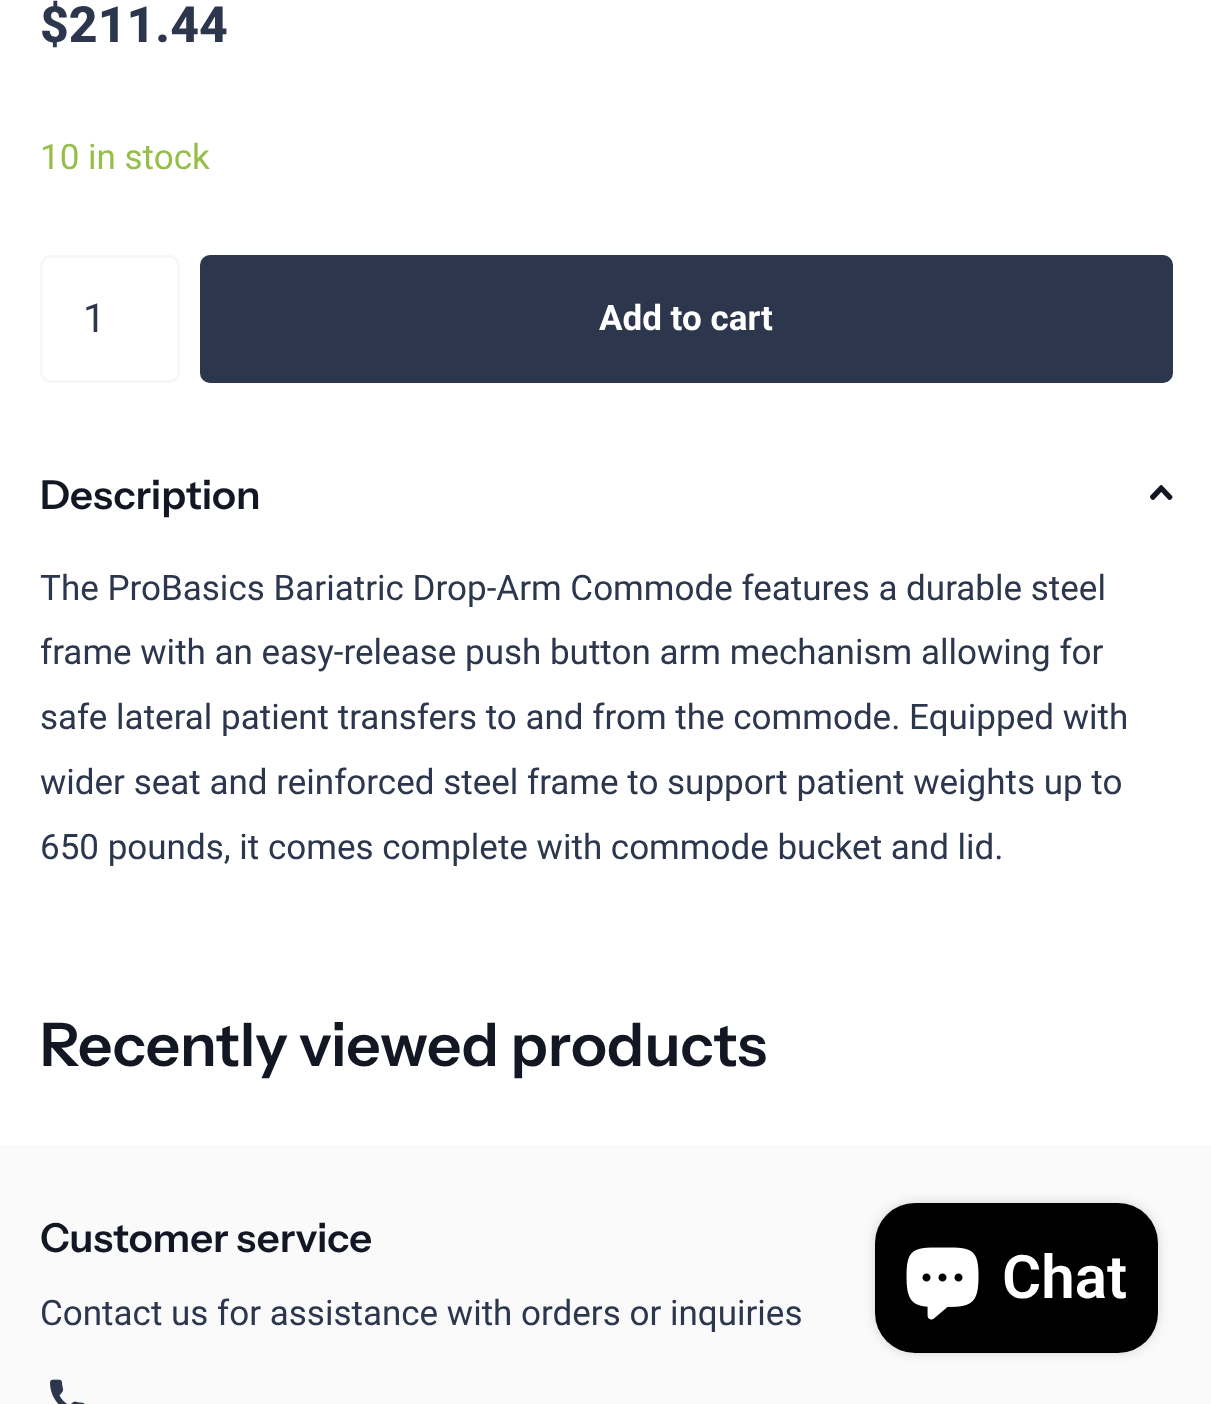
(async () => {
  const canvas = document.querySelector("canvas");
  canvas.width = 1211;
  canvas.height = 1404;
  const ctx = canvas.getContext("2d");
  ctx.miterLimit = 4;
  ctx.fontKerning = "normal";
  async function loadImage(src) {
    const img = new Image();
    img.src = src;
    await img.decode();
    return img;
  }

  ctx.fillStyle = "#ffffff";
  ctx.fillRect(0, 0, 1211, 1404);
  ctx.beginPath();
  ctx.roundRect(41.5, 256.5, 137, 125, 8.5);
  ctx.strokeStyle = "#f7f7f7";
  ctx.lineWidth = 3;
  ctx.stroke();
  ctx.fillStyle = "#2c374d";
  ctx.beginPath();
  ctx.roundRect(200, 255, 973, 128, 10);
  ctx.fill();
  ctx.drawImage(await loadImage("img/1.png"), 1150, 485, 23, 15);
  ctx.fillStyle = "#fafafa";
  ctx.fillRect(0, 1145, 1211, 259);
  ctx.drawImage(await loadImage("img/2.png"), 50, 1379, 35, 25);
  ctx.fillStyle = "rgba(0, 0, 0, 0.15)";
  ctx.filter = "blur(6px)";
  ctx.beginPath();
  ctx.roundRect(875, 1203, 283, 150, 40);
  ctx.fill();
  ctx.filter = "none";
  ctx.fillStyle = "#000000";
  ctx.beginPath();
  ctx.roundRect(875, 1203, 283, 150, 40);
  ctx.fill();
  ctx.drawImage(await loadImage("img/3.png"), 906, 1247, 73, 73);
  ctx.font = "800 50px Roboto";
  ctx.fillStyle = "#2c374d";
  ctx.fillText("$211.44", 40, 42);
  ctx.font = "35px Roboto";
  ctx.fillStyle = "#95bf47";
  ctx.fillText("10 in stock", 40, 169);
  ctx.font = "40px Roboto";
  ctx.fillStyle = "#2c374d";
  ctx.fillText("1", 83, 332);
  ctx.font = "bold 35px Roboto";
  ctx.fillStyle = "#ffffff";
  ctx.fillText("Add to cart", 599, 330);
  ctx.font = "600 40px Instrument Sans";
  ctx.fillStyle = "#121723";
  ctx.fillText("Description", 40, 509);
  ctx.font = "35px Roboto";
  ctx.fillStyle = "#2c374d";
  for (const [text, x, y] of [
    ["The ProBasics Bariatric Drop-Arm Commode features a durable steel", 40, 600],
    ["frame with an easy-release push button arm mechanism allowing for", 40, 664],
    ["safe lateral patient transfers to and from the commode. Equipped with", 40, 729],
    ["wider seat and reinforced steel frame to support patient weights up to", 40, 794],
    ["650 pounds, it comes complete with commode bucket and lid.", 40, 859],
  ]) {
    ctx.fillText(text, x, y);
  }
  ctx.font = "600 60px Instrument Sans";
  ctx.fillStyle = "#121723";
  ctx.fillText("Recently viewed products", 40, 1066);
  ctx.font = "600 40px Instrument Sans";
  ctx.fillText("Customer service", 40, 1252);
  ctx.font = "35px Roboto";
  ctx.fillStyle = "#2c374d";
  ctx.fillText("Contact us for assistance with orders or inquiries", 40, 1325);
  ctx.font = "600 60px Roboto";
  ctx.fillStyle = "#ffffff";
  ctx.fillText("Chat", 1002, 1298);
})();
